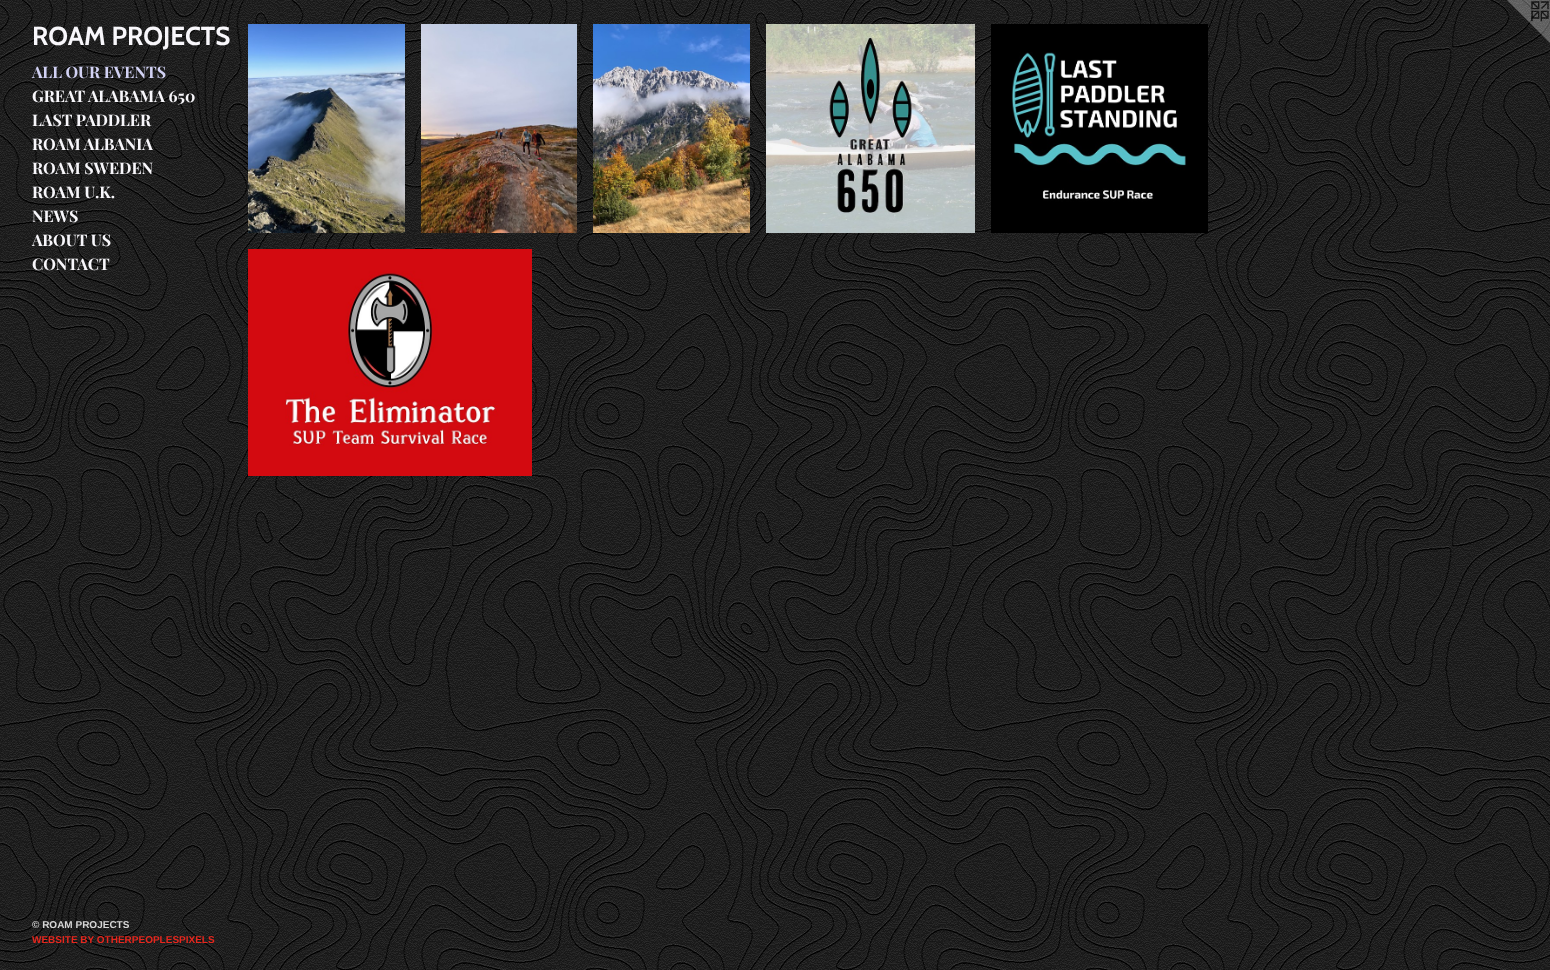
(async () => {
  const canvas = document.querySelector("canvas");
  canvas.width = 1550;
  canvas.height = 970;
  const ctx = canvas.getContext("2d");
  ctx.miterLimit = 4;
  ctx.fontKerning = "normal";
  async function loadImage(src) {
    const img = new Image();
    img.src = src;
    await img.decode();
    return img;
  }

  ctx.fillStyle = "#ffffff";
  ctx.fillRect(0, 0, 1550, 970);
  ctx.drawImage(await loadImage("img/1.png"), 0, 0, 1550, 970);
  ctx.drawImage(await loadImage("img/2.png"), 248, 24, 157, 209);
  ctx.drawImage(await loadImage("img/3.png"), 421, 24, 156, 209);
  ctx.drawImage(await loadImage("img/4.png"), 593, 24, 157, 209);
  ctx.drawImage(await loadImage("img/5.png"), 766, 24, 209, 209);
  ctx.drawImage(await loadImage("img/6.png"), 991, 24, 217, 209);
  ctx.drawImage(await loadImage("img/7.png"), 248, 249, 284, 227);
  ctx.drawImage(await loadImage("img/8.png"), 1507, 0, 43, 43);
  ctx.font = "bold 26px Cabin";
  ctx.fillStyle = "#f8f7fb";
  ctx.fillText("ROAM PROJECTS", 32, 45);
  ctx.font = "bold 16px Playfair Display";
  ctx.fillStyle = "#d2d2f4";
  ctx.fillText("ALL OUR EVENTS", 32, 78);
  ctx.fillStyle = "#f8f7fb";
  for (const [text, x, y] of [
    ["GREAT ALABAMA 650", 32, 102],
    ["LAST PADDLER", 32, 126],
    ["ROAM ALBANIA", 32, 150],
    ["ROAM SWEDEN", 32, 174],
    ["ROAM U.K.", 32, 198],
    ["NEWS", 32, 222],
    ["ABOUT US", 32, 246],
    ["CONTACT", 32, 270],
  ]) {
    ctx.fillText(text, x, y);
  }
  ctx.font = "bold 10px Liberation Sans";
  ctx.fillStyle = "#d6d6d6";
  ctx.fillText("© ROAM PROJECTS", 32, 928);
  ctx.fillStyle = "#e6271e";
  ctx.fillText("WEBSITE BY OTHERPEOPLESPIXELS", 32, 943);
})();
